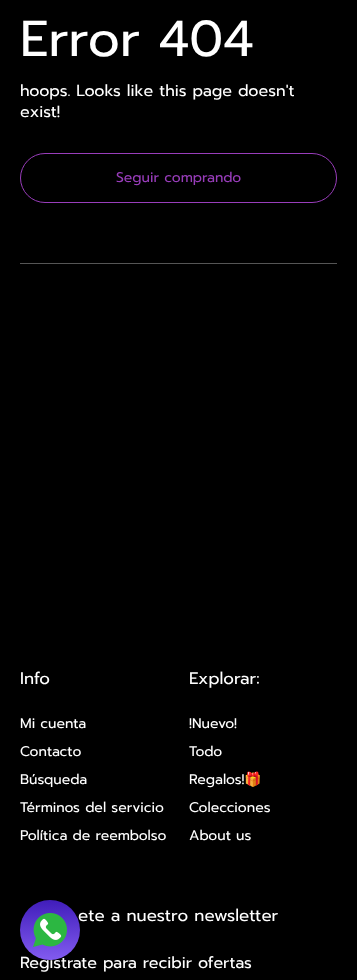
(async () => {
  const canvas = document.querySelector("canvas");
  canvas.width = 357;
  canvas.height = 980;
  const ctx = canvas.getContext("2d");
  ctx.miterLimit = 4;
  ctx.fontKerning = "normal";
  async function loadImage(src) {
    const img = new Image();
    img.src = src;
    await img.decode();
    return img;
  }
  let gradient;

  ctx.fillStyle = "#000000";
  ctx.fillRect(0, 0, 357, 980);
  ctx.beginPath();
  ctx.roundRect(20.5, 153.5, 316, 49, 24.5);
  ctx.strokeStyle = "#993dbb";
  ctx.stroke();
  ctx.fillStyle = "#555555";
  ctx.fillRect(20, 263, 317, 1);
  ctx.fillStyle = "rgba(0, 0, 0, 0.15)";
  ctx.filter = "blur(1px)";
  ctx.beginPath();
  ctx.roundRect(20, 901, 60, 60, 30);
  ctx.fill();
  ctx.filter = "none";
  ctx.font = "50.5px Prompt";
  ctx.fillStyle = "#ffffff";
  ctx.fillText("Error 404", 20, 56);
  ctx.font = "16px Prompt";
  ctx.fillText("hoops. Looks like this page doesn't", 20, 96);
  ctx.fillText("exist!", 20, 117);
  ctx.font = "14px Prompt";
  ctx.fillStyle = "#993dbb";
  ctx.fillText("Seguir comprando", 116, 182);
  ctx.font = "16.75px Prompt";
  ctx.fillStyle = "#ffffff";
  ctx.fillText("Info", 20, 684);
  ctx.font = "14px Prompt";
  for (const [text, x, y] of [
    ["Mi cuenta", 20, 728],
    ["Contacto", 20, 756],
    ["Búsqueda", 20, 784],
    ["Términos del servicio", 20, 812],
    ["Política de reembolso", 20, 840],
  ]) {
    ctx.fillText(text, x, y);
  }
  ctx.font = "16.75px Prompt";
  ctx.fillText("Explorar:", 189, 684);
  ctx.font = "14px Prompt";
  for (const [text, x, y] of [
    ["!Nuevo!", 189, 728],
    ["Todo", 189, 756],
    ["Regalos!", 189, 784],
  ]) {
    ctx.fillText(text, x, y);
  }
  ctx.font = "14px Noto Color Emoji";
  ctx.fillText("🎁", 244, 784);
  ctx.font = "14px Prompt";
  ctx.fillText("Colecciones", 189, 812);
  ctx.fillText("About us", 189, 840);
  ctx.font = "16.75px Prompt";
  ctx.fillText("ete a nuestro newsletter", 78, 921);
  ctx.font = "16px Prompt";
  ctx.fillText("Regístrate para recibir ofertas", 20, 968);
  gradient = ctx.createLinearGradient(50, 900, 50, 960);
  gradient.addColorStop(0, "#401dba");
  gradient.addColorStop(1, "#825bf0");
  ctx.fillStyle = gradient;
  ctx.beginPath();
  ctx.arc(50, 930, 30, 0, Math.PI * 2);
  ctx.fill();
  ctx.drawImage(await loadImage("img/1.png"), 33, 913, 34, 34);
})();
